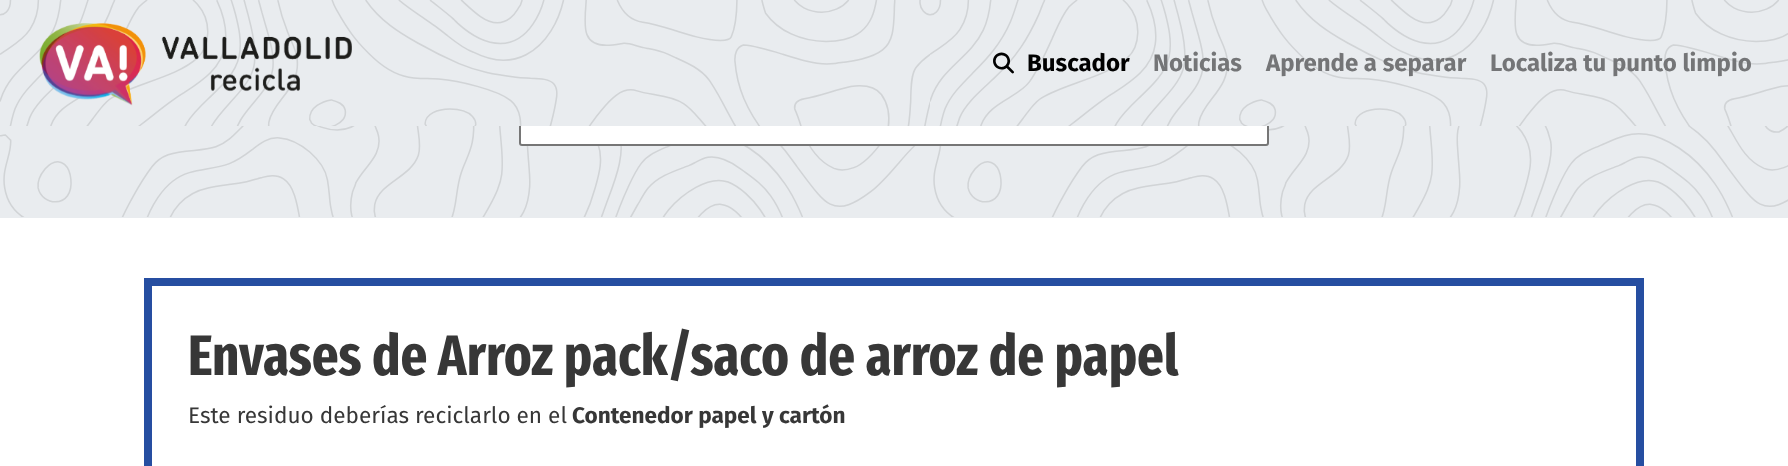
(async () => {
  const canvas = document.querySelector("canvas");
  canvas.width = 1788;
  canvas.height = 466;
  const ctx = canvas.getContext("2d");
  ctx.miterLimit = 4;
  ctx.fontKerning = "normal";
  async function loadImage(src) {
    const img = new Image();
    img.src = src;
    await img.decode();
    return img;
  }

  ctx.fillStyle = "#ffffff";
  ctx.fillRect(0, 0, 1788, 466);
  ctx.fillStyle = "#e9ecef";
  ctx.fillRect(0, 126, 1788, 92);
  ctx.drawImage(await loadImage("img/4.png"), 0, 126, 1788, 91);
  ctx.fillStyle = "#ffffff";
  ctx.beginPath();
  ctx.roundRect(520, 78, 748, 67, 2);
  ctx.fill();
  ctx.strokeStyle = "#767676";
  ctx.lineWidth = 2;
  ctx.stroke();
  ctx.fillStyle = "#e9ecef";
  ctx.fillRect(0, 0, 1788, 126);
  ctx.drawImage(await loadImage("img/1.png"), 0, 0, 1788, 126);
  ctx.drawImage(await loadImage("img/2.png"), 39, 23, 313, 83);
  ctx.drawImage(await loadImage("img/3.png"), 993, 52, 21, 22);
  ctx.strokeStyle = "#264ea1";
  ctx.lineWidth = 8;
  ctx.strokeRect(148, 282, 1492, 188);
  ctx.font = "bold 24px Fira Sans";
  ctx.fillStyle = "#000000";
  ctx.fillText("Buscador", 1027, 71);
  ctx.fillStyle = "#747577";
  for (const [text, x, y] of [
    ["Noticias", 1153, 71],
    ["Aprende a separar", 1266, 71],
    ["Localiza tu punto limpio", 1490, 71],
  ]) {
    ctx.fillText(text, x, y);
  }
  ctx.font = "bold 57px Fira Sans Extra Condensed";
  ctx.fillStyle = "#373737";
  ctx.fillText("Envases de Arroz pack/saco de arroz de papel", 188, 375);
  ctx.font = "22.6px Fira Sans";
  ctx.fillText("Este residuo deberías reciclarlo en el", 188, 423);
  ctx.font = "bold 22.6px Fira Sans";
  ctx.fillText("Contenedor papel y cartón", 572, 423);
})();
